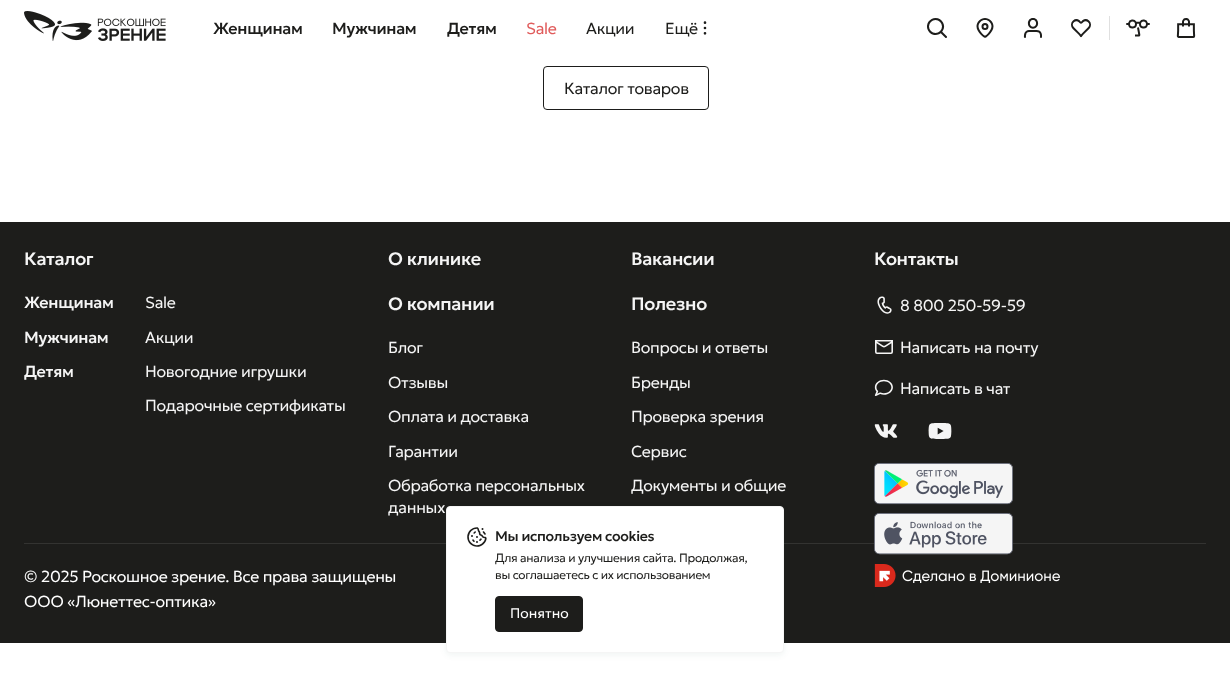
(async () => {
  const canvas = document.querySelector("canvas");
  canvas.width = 1230;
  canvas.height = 677;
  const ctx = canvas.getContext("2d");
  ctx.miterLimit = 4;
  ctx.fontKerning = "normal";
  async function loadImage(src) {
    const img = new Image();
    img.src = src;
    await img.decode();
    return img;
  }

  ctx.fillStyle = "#ffffff";
  ctx.fillRect(0, 0, 1230, 677);
  ctx.drawImage(await loadImage("img/1.png"), 24, 11, 142, 30);
  ctx.drawImage(await loadImage("img/2.png"), 703, 21, 4, 14);
  ctx.drawImage(await loadImage("img/3.png"), 927, 18, 20, 20);
  ctx.drawImage(await loadImage("img/4.png"), 976, 18, 18, 20);
  ctx.drawImage(await loadImage("img/5.png"), 1023, 18, 19, 20);
  ctx.drawImage(await loadImage("img/6.png"), 1071, 19, 20, 19);
  ctx.fillStyle = "#e0e0e0";
  ctx.fillRect(1109, 16, 1, 24);
  ctx.drawImage(await loadImage("img/7.png"), 1126, 19, 24, 18);
  ctx.drawImage(await loadImage("img/8.png"), 1176, 18, 20, 20);
  ctx.beginPath();
  ctx.roundRect(543.5, 66.5, 165, 43, 3.5);
  ctx.strokeStyle = "#1d1d1b";
  ctx.stroke();
  ctx.fillStyle = "#1d1d1b";
  ctx.fillRect(0, 222, 1230, 421);
  ctx.drawImage(await loadImage("img/9.png"), 877, 296, 15, 18);
  ctx.drawImage(await loadImage("img/10.png"), 875, 340, 18, 14);
  ctx.drawImage(await loadImage("img/11.png"), 874, 379, 19, 17);
  ctx.drawImage(await loadImage("img/12.png"), 874, 424, 24, 14);
  ctx.drawImage(await loadImage("img/13.png"), 928, 423, 24, 16);
  ctx.drawImage(await loadImage("img/14.png"), 874, 463, 139, 42);
  ctx.fillStyle = "#333331";
  ctx.fillRect(24, 543, 1182, 1);
  ctx.drawImage(await loadImage("img/15.png"), 874, 513, 139, 42);
  ctx.drawImage(await loadImage("img/16.png"), 874, 564, 186, 23);
  ctx.fillStyle = "rgba(0, 73, 56, 0.06)";
  ctx.filter = "blur(3px)";
  ctx.beginPath();
  ctx.roundRect(446, 508, 338, 147, 4);
  ctx.fill();
  ctx.filter = "none";
  ctx.fillStyle = "#ffffff";
  ctx.beginPath();
  ctx.roundRect(446.5, 506.5, 337, 146, 3.5);
  ctx.fill();
  ctx.strokeStyle = "#f5f5f5";
  ctx.stroke();
  ctx.drawImage(await loadImage("img/17.png"), 467, 527, 20, 20);
  ctx.fillStyle = "#1d1d1b";
  ctx.beginPath();
  ctx.roundRect(495.5, 596.5, 87, 35, 3.5);
  ctx.fill();
  ctx.strokeStyle = "#1d1d1b";
  ctx.stroke();
  ctx.letterSpacing = "-0.3px";
  ctx.font = "500 16px Geologica";
  for (const [text, x, y] of [
    ["Женщинам", 213, 34],
    ["Мужчинам", 332, 34],
    ["Детям", 447, 34],
  ]) {
    ctx.fillText(text, x, y);
  }
  ctx.font = "300 16px Geologica";
  ctx.fillStyle = "#e05b5b";
  ctx.fillText("Sale", 526, 34);
  ctx.fillStyle = "#1d1d1b";
  for (const [text, x, y] of [
    ["Акции", 586, 34],
    ["Ещё", 665, 34],
    ["Каталог товаров", 564, 94],
  ]) {
    ctx.fillText(text, x, y);
  }
  ctx.font = "500 18px Geologica";
  ctx.fillStyle = "#f5f5f5";
  ctx.fillText("Каталог", 24, 265);
  ctx.font = "500 16px Geologica";
  for (const [text, x, y] of [
    ["Женщинам", 24, 308],
    ["Мужчинам", 24, 343],
    ["Детям", 24, 377],
  ]) {
    ctx.fillText(text, x, y);
  }
  ctx.font = "300 16px Geologica";
  for (const [text, x, y] of [
    ["Sale", 145, 308],
    ["Акции", 145, 343],
    ["Новогодние игрушки", 145, 377],
    ["Подарочные сертификаты", 145, 411],
  ]) {
    ctx.fillText(text, x, y);
  }
  ctx.font = "500 18px Geologica";
  for (const [text, x, y] of [
    ["О клинике", 388, 265],
    ["Вакансии", 631, 265],
    ["О компании", 388, 310],
  ]) {
    ctx.fillText(text, x, y);
  }
  ctx.font = "300 16px Geologica";
  for (const [text, x, y] of [
    ["Блог", 388, 353],
    ["Отзывы", 388, 388],
    ["Оплата и доставка", 388, 422],
    ["Гарантии", 388, 457],
    ["Обработка персональных", 388, 491],
    ["данных", 388, 513],
  ]) {
    ctx.fillText(text, x, y);
  }
  ctx.font = "500 18px Geologica";
  ctx.fillText("Полезно", 631, 310);
  ctx.font = "300 16px Geologica";
  for (const [text, x, y] of [
    ["Вопросы и ответы", 631, 353],
    ["Бренды", 631, 388],
    ["Проверка зрения", 631, 422],
    ["Сервис", 631, 457],
    ["Документы и общие", 631, 491],
  ]) {
    ctx.fillText(text, x, y);
  }
  ctx.font = "500 18px Geologica";
  ctx.fillText("Контакты", 874, 265);
  ctx.font = "300 16px Geologica";
  for (const [text, x, y] of [
    ["8 800 250-59-59", 900, 311],
    ["Написать на почту", 900, 353],
    ["Написать в чат", 900, 394],
  ]) {
    ctx.fillText(text, x, y);
  }
  ctx.fillStyle = "#ffffff";
  ctx.fillText("© 2025 Роскошное зрение. Все права защищены", 24, 582);
  ctx.fillText("ООО «Люнеттес-оптика»", 24, 607);
  ctx.font = "500 14px Geologica";
  ctx.fillStyle = "#1d1d1b";
  ctx.fillText("Мы используем cookies", 495, 541);
  ctx.font = "300 12px Geologica";
  ctx.fillText("Для анализа и улучшения сайта. Продолжая,", 495, 562);
  ctx.fillText("вы соглашаетесь с их использованием", 495, 579);
  ctx.letterSpacing = "0px";
  ctx.font = "300 14px Geologica";
  ctx.fillStyle = "#ffffff";
  ctx.fillText("Понятно", 510, 618);
})();
